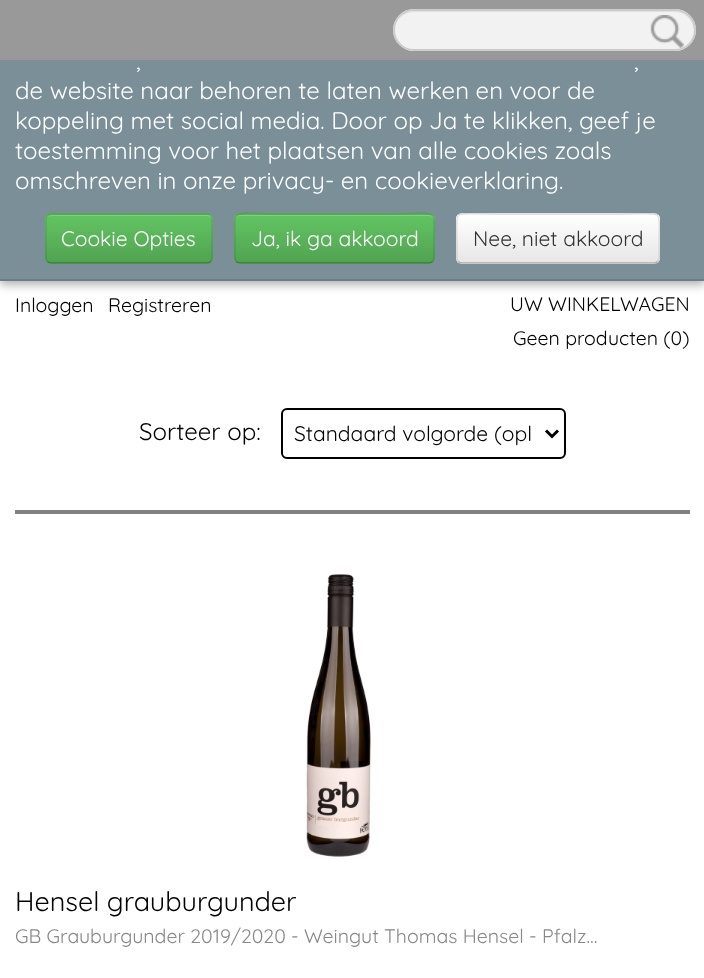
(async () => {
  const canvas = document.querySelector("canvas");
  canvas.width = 704;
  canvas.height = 978;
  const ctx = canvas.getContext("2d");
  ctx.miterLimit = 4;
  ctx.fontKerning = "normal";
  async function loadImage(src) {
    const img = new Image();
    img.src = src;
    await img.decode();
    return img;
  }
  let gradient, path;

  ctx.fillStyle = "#ffffff";
  ctx.fillRect(0, 0, 704, 978);
  ctx.fillStyle = "rgba(0, 0, 0, 0.3)";
  ctx.filter = "blur(5px)";
  ctx.beginPath();
  ctx.rect(0, 5, 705, 280);
  ctx.fill();
  ctx.filter = "none";
  ctx.fillStyle = "#999999";
  ctx.fillRect(0, 0, 704, 60);
  ctx.fillStyle = "#f2f2f2";
  ctx.beginPath();
  ctx.roundRect(393, 9, 303, 42, 21);
  ctx.fill();
  ctx.fillStyle = "#e0e0e0";
  path = new Path2D("M414 12H675C686 12 694 21 694 32C694 36 693 40 691 43C693 39 695 35 695 30C695 20 686 11 676 11H414C408 11 402 14 398 20C402 15 408 12 414 12Z");
  ctx.fill(path);
  ctx.beginPath();
  ctx.roundRect(394, 10, 301, 40, 20);
  ctx.strokeStyle = "#cccccc";
  ctx.lineWidth = 2;
  ctx.stroke();
  ctx.drawImage(await loadImage("img/1.png"), 650, 15, 34, 33);
  ctx.fillStyle = "#7a8f98";
  ctx.fillRect(0, 60, 704, 219);
  ctx.fillStyle = "#697e87";
  ctx.fillRect(0, 279, 704, 2);
  ctx.fillStyle = "#5bb75b";
  ctx.beginPath();
  ctx.roundRect(45, 213, 168, 51, 6);
  ctx.fill();
  ctx.save();
  ctx.beginPath();
  ctx.roundRect(45, 213, 168, 51, 6);
  ctx.clip();
  gradient = ctx.createLinearGradient(129, 215, 129, 263);
  gradient.addColorStop(0, "#62c462");
  gradient.addColorStop(1, "#51a351");
  ctx.fillStyle = gradient;
  ctx.fillRect(45, 215, 168, 48);
  ctx.restore();
  ctx.fillStyle = "#81d081";
  path = new Path2D("M51 216H207C209 216 212 218 212 220C212 217 210 215 207 215H52C50 215 49 216 48 217Z");
  ctx.fill(path);
  path = new Path2D("M210.5 261.5C209.5 262.5 208.5 263 207 263H51C49.5 263 48.5 262.5 47.5 261.5");
  ctx.strokeStyle = "rgba(0, 0, 0, 0.25)";
  ctx.lineWidth = 1.5;
  ctx.stroke(path);
  path = new Path2D("M47.5 261.5C46.5 260.5 46 259.5 46 258V219C46 217.5 46.5 216.5 47.5 215.5C48.5 214.5 49.5 214 51 214H207C208.5 214 209.5 214.5 210.5 215.5C211.5 216.5 212 217.5 212 219V258C212 259.5 211.5 260.5 210.5 261.5");
  ctx.strokeStyle = "rgba(0, 0, 0, 0.1)";
  ctx.stroke(path);
  ctx.fillStyle = "#5bb75b";
  ctx.beginPath();
  ctx.roundRect(234, 213, 201, 51, 6);
  ctx.fill();
  ctx.save();
  ctx.beginPath();
  ctx.roundRect(234, 213, 201, 51, 6);
  ctx.clip();
  gradient = ctx.createLinearGradient(335, 215, 335, 263);
  gradient.addColorStop(0, "#62c462");
  gradient.addColorStop(1, "#51a351");
  ctx.fillStyle = gradient;
  ctx.fillRect(234, 215, 201, 48);
  ctx.restore();
  ctx.fillStyle = "#81d081";
  path = new Path2D("M240 216H429C431 216 434 218 434 220C434 217 432 215 429 215H241C238 215 236 217 236 220C236 218 238 216 240 216Z");
  ctx.fill(path);
  path = new Path2D("M432.5 261.5C431.5 262.5 430.5 263 429 263H240C238.5 263 237.5 262.5 236.5 261.5");
  ctx.strokeStyle = "rgba(0, 0, 0, 0.25)";
  ctx.stroke(path);
  path = new Path2D("M236.5 261.5C234 259 235 254.5 235 251.5V245C235 206 228.5 214 271.5 214H397.5C440.5 214 434 206 434 245V251.5C434 254.5 435 259 432.5 261.5");
  ctx.strokeStyle = "rgba(0, 0, 0, 0.1)";
  ctx.stroke(path);
  ctx.fillStyle = "#f5f5f5";
  ctx.beginPath();
  ctx.roundRect(456, 213, 204, 51, 6);
  ctx.fill();
  ctx.save();
  ctx.beginPath();
  ctx.roundRect(456, 213, 204, 51, 6);
  ctx.clip();
  gradient = ctx.createLinearGradient(558, 215, 558, 263);
  gradient.addColorStop(0, "#ffffff");
  gradient.addColorStop(1, "#e6e6e6");
  ctx.fillStyle = gradient;
  ctx.fillRect(456, 215, 204, 48);
  ctx.restore();
  ctx.fillStyle = "rgba(255, 255, 255, 0.2)";
  path = new Path2D("M462 216H654C656 216 658 218 658 220V261C659 260 659 259 659 258V220C659 217 657 215 654 215H463C460 215 458 217 458 220C458 218 460 216 462 216Z");
  ctx.fill(path);
  path = new Path2D("M657.5 261.5C656.5 262.5 655.5 263 654 263H462C460.5 263 459.5 262.5 458.5 261.5");
  ctx.strokeStyle = "rgba(0, 0, 0, 0.25)";
  ctx.stroke(path);
  path = new Path2D("M458.5 261.5C456 259 457 254.5 457 251.5V245C457 206 450.5 214 494 214H622C665.5 214 659 206 659 245V251.5C659 254.5 660 259 657.5 261.5");
  ctx.strokeStyle = "rgba(0, 0, 0, 0.1)";
  ctx.stroke(path);
  ctx.fillStyle = "#fafafa";
  path = new Path2D("M286 411H560L563 412L564 416V415C564 412 562 410 559 410H287C284 410 282 412 282 415V416C282 413 284 411 286 411Z");
  ctx.fill(path);
  ctx.beginPath();
  ctx.roundRect(282, 409, 283, 49, 5);
  ctx.strokeStyle = "#000000";
  ctx.lineWidth = 2;
  ctx.stroke();
  path = new Path2D("M546 430.5L552 436.5L558 430.5");
  ctx.lineWidth = 3;
  ctx.stroke(path);
  ctx.fillStyle = "#828181";
  ctx.fillRect(15, 510, 675, 4);
  ctx.drawImage(await loadImage("img/2.png"), 306, 574, 65, 283);
  ctx.font = "24px Quicksand";
  ctx.fillStyle = "#ffffff";
  for (const [text, x, y] of [
    [",", 136, 69],
    [",", 634, 69],
    ["de website naar behoren te laten werken en voor de", 15, 99],
    ["koppeling met social media. Door op Ja te klikken, geef je", 15, 129],
    ["toestemming voor het plaatsen van alle cookies zoals", 15, 159],
    ["omschreven in onze privacy- en cookieverklaring.", 15, 189],
  ]) {
    ctx.fillText(text, x, y);
  }
  ctx.font = "21px Quicksand";
  ctx.fillText("Cookie Opties", 61, 246);
  ctx.fillText("Ja, ik ga akkoord", 251, 246);
  ctx.fillStyle = "#333333";
  ctx.fillText("Nee, niet akkoord", 473, 246);
  ctx.font = "19.5px Quicksand";
  ctx.fillStyle = "#000000";
  for (const [text, x, y] of [
    ["Inloggen", 15, 312],
    ["Registreren", 108, 312],
    ["UW WINKELWAGEN", 510, 311],
    ["Geen producten (0)", 513, 345],
  ]) {
    ctx.fillText(text, x, y);
  }
  ctx.font = "24px Quicksand";
  ctx.fillText("Sorteer op:", 139, 440);
  ctx.font = "21px Quicksand";
  ctx.fillText("Standaard volgorde (opl", 294, 441);
  ctx.font = "27px Quicksand";
  ctx.fillText("Hensel grauburgunder", 15, 911);
  ctx.font = "19.5px Quicksand";
  ctx.fillStyle = "#888888";
  ctx.fillText("GB Grauburgunder 2019/2020 - Weingut Thomas Hensel - Pfalz…", 15, 943);
})();
